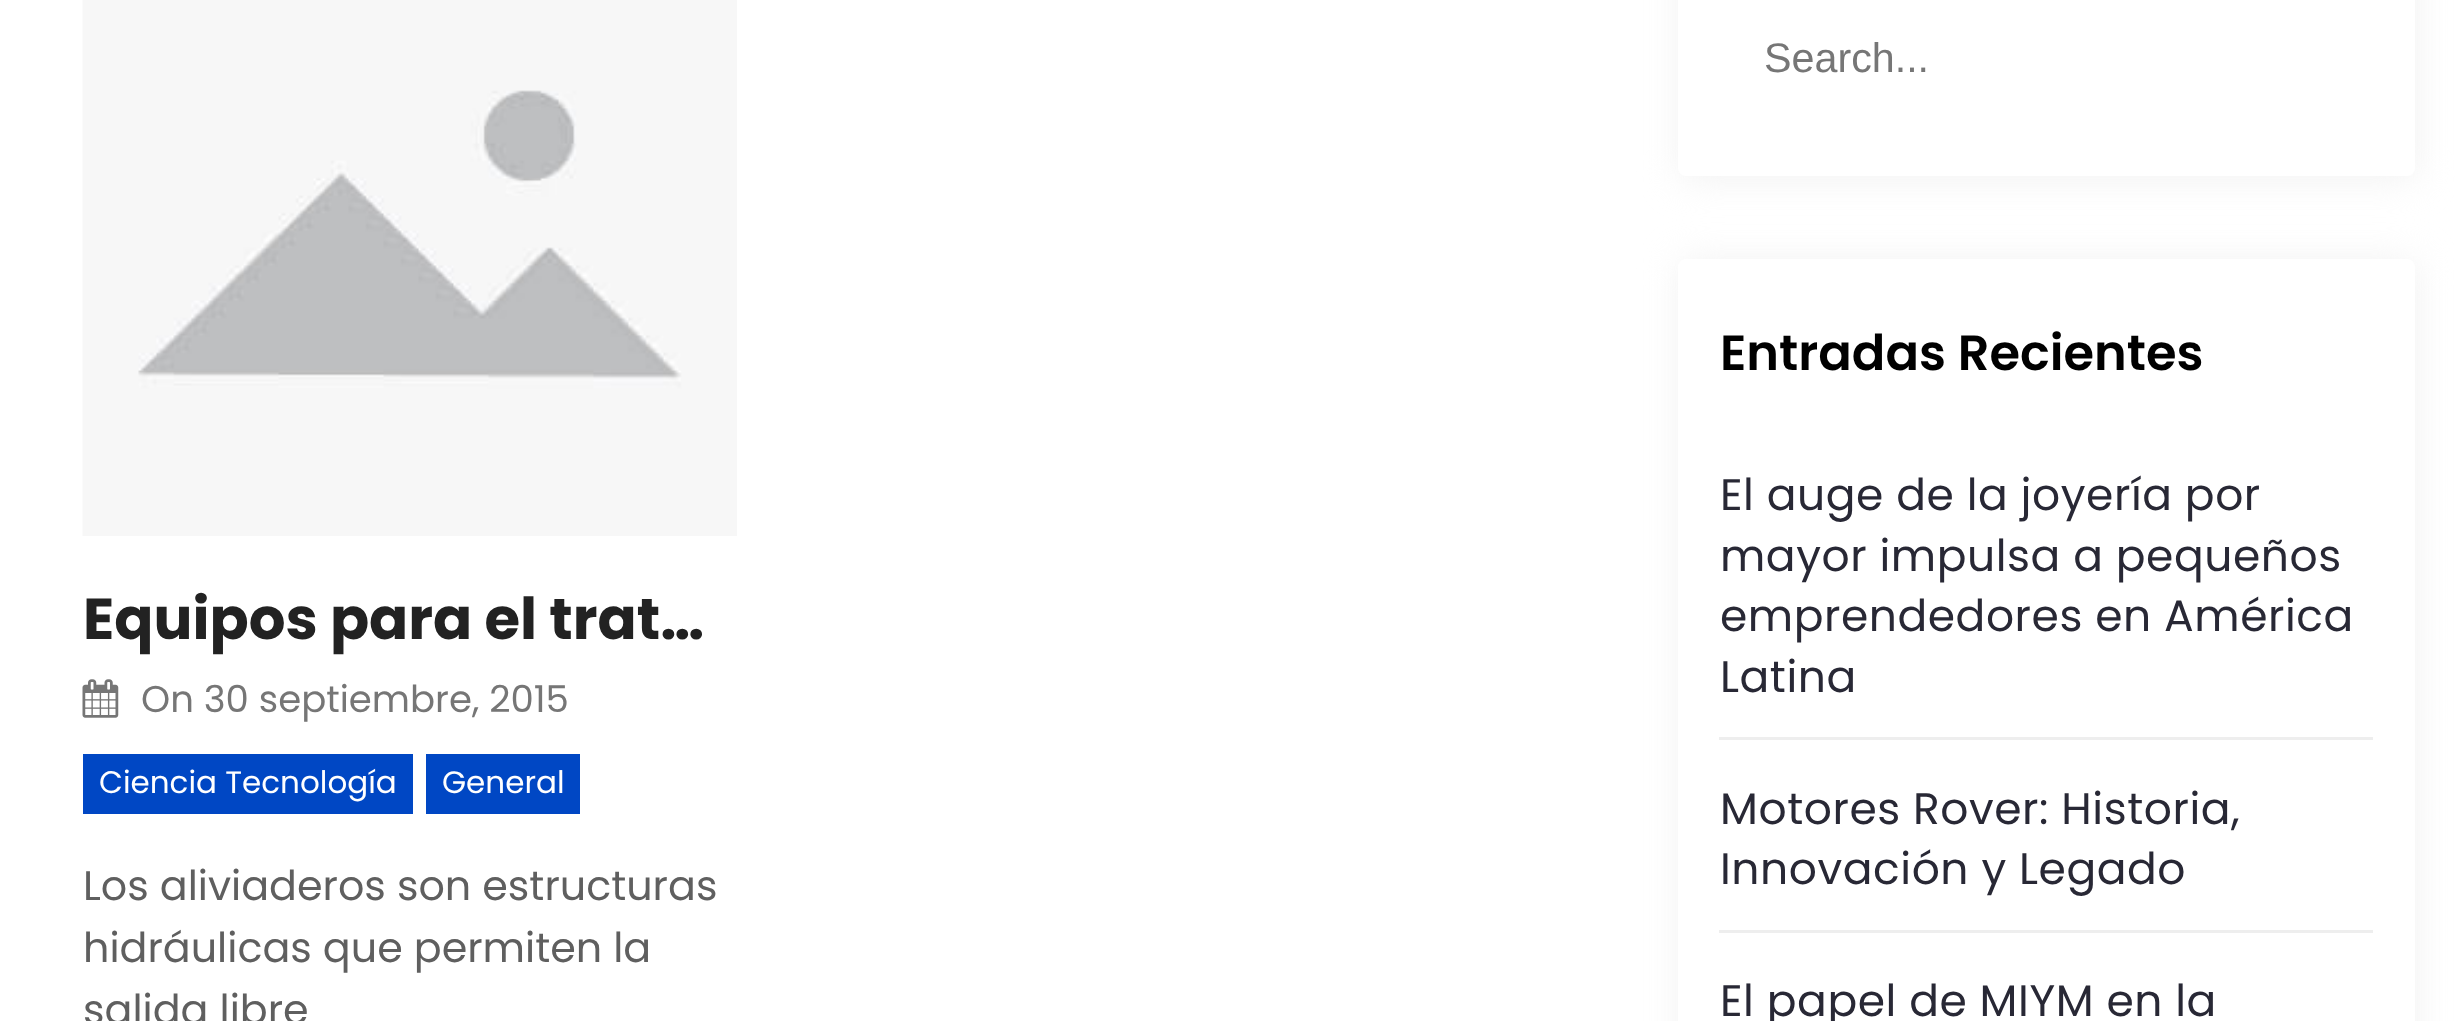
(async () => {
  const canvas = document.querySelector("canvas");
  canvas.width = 2455;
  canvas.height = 1021;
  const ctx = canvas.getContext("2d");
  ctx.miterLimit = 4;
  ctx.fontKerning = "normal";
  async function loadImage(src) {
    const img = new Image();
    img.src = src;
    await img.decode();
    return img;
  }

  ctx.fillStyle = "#ffffff";
  ctx.fillRect(0, 0, 2455, 1021);
  ctx.drawImage(await loadImage("img/1.png"), 82, 0, 655, 536);
  ctx.drawImage(await loadImage("img/2.png"), 82, 679, 37, 39);
  ctx.fillStyle = "#0047c4";
  ctx.fillRect(83, 754, 330, 60);
  ctx.fillRect(426, 754, 154, 60);
  ctx.fillStyle = "#f2f2f2";
  ctx.filter = "blur(18px)";
  ctx.beginPath();
  ctx.roundRect(1680, -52, 737, 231, 8);
  ctx.fill();
  ctx.filter = "none";
  ctx.fillStyle = "#ffffff";
  ctx.beginPath();
  ctx.roundRect(1678, -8, 737, 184, 8);
  ctx.fill();
  ctx.fillStyle = "#f2f2f2";
  ctx.filter = "blur(18px)";
  ctx.beginPath();
  ctx.roundRect(1680, 261, 737, 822, 8);
  ctx.fill();
  ctx.filter = "none";
  ctx.fillStyle = "#ffffff";
  ctx.beginPath();
  ctx.roundRect(1678, 259, 737, 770, 8);
  ctx.fill();
  ctx.fillStyle = "#eeeeee";
  ctx.fillRect(1719, 737, 654, 3);
  ctx.fillRect(1719, 930, 654, 3);
  ctx.font = "bold 57.75px Poppins";
  ctx.fillStyle = "#222222";
  ctx.fillText("Equipos para el trat…", 83, 639);
  ctx.font = "37.1px Poppins";
  ctx.fillStyle = "#767676";
  ctx.fillText("On 30 septiembre, 2015", 141, 712);
  ctx.font = "31px Poppins";
  ctx.fillStyle = "#ffffff";
  ctx.fillText("Ciencia Tecnología", 99, 793);
  ctx.fillText("General", 442, 793);
  ctx.font = "41.25px Poppins";
  ctx.fillStyle = "#5f5f5f";
  for (const [text, x, y] of [
    ["Los aliviaderos son estructuras", 83, 900],
    ["hidráulicas que permiten la", 83, 962],
    ["salida libre", 83, 1024],
  ]) {
    ctx.fillText(text, x, y);
  }
  ctx.font = "41.25px Liberation Sans";
  ctx.fillStyle = "#767676";
  ctx.fillText("Search...", 1764, 72);
  ctx.font = "600 49.5px Poppins";
  ctx.fillStyle = "#000000";
  ctx.fillText("Entradas Recientes", 1720, 370);
  ctx.letterSpacing = "0.55px";
  ctx.font = "44px Poppins";
  ctx.fillStyle = "#282835";
  for (const [text, x, y] of [
    ["El auge de la joyería por", 1720, 510],
    ["mayor impulsa a pequeños", 1720, 571],
    ["emprendedores en América", 1720, 631],
    ["Latina", 1720, 692],
    ["Motores Rover: Historia,", 1720, 824],
    ["Innovación y Legado", 1720, 884],
    ["El papel de MIYM en la", 1720, 1016],
  ]) {
    ctx.fillText(text, x, y);
  }
})();
